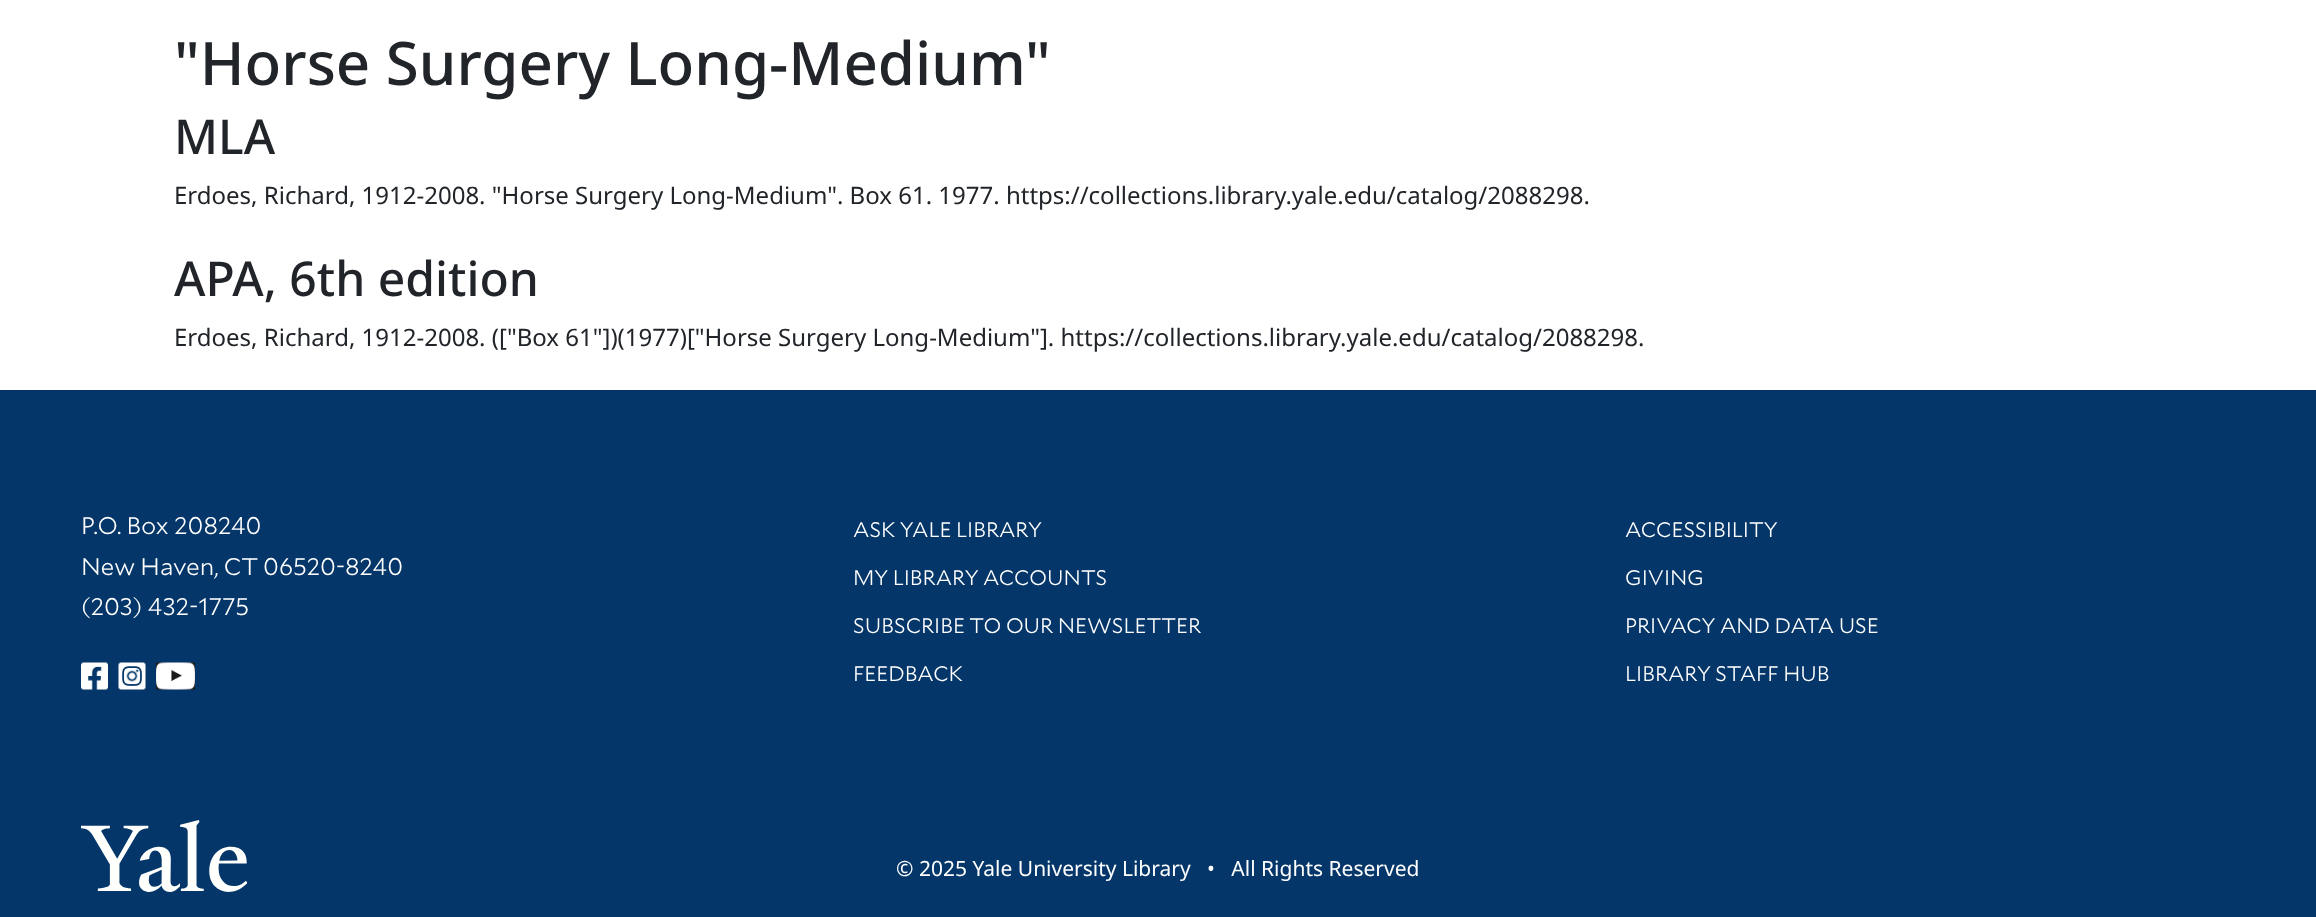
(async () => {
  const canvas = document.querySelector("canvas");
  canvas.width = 2316;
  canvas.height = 917;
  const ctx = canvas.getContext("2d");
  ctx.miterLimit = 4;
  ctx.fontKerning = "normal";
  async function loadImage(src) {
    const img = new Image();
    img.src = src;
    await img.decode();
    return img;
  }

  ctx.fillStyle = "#ffffff";
  ctx.fillRect(0, 0, 2316, 917);
  ctx.fillStyle = "#043669";
  ctx.fillRect(0, 390, 2316, 527);
  ctx.drawImage(await loadImage("img/1.png"), 81, 662, 27, 28);
  ctx.drawImage(await loadImage("img/2.png"), 118, 662, 28, 28);
  ctx.drawImage(await loadImage("img/3.png"), 156, 662, 39, 28);
  ctx.drawImage(await loadImage("img/4.png"), 81, 820, 167, 72);
  ctx.font = "500 60px Noto Sans";
  ctx.fillStyle = "#212529";
  ctx.fillText("\"Horse Surgery Long-Medium\"", 174, 85);
  ctx.font = "500 48px Noto Sans";
  ctx.fillText("MLA", 174, 154);
  ctx.font = "24px Noto Sans";
  ctx.fillText("Erdoes, Richard, 1912-2008. \"Horse Surgery Long-Medium\". Box 61. 1977. https://collections.library.yale.edu/catalog/2088298.", 174, 204);
  ctx.font = "500 48px Noto Sans";
  ctx.fillText("APA, 6th edition", 174, 296);
  ctx.font = "24px Noto Sans";
  ctx.fillText("Erdoes, Richard, 1912-2008. ([\"Box 61\"])(1977)[\"Horse Surgery Long-Medium\"]. https://collections.library.yale.edu/catalog/2088298.", 174, 346);
  ctx.font = "300 24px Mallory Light";
  ctx.fillStyle = "#ffffff";
  for (const [text, x, y] of [
    ["P.O. Box 208240", 81, 534],
    ["New Haven, CT 06520-8240", 81, 575],
    ["(203) 432-1775", 81, 615],
  ]) {
    ctx.fillText(text, x, y);
  }
  ctx.font = "300 21px Mallory Light";
  for (const [text, x, y] of [
    ["ASK YALE LIBRARY", 853, 537],
    ["MY LIBRARY ACCOUNTS", 853, 585],
    ["SUBSCRIBE TO OUR NEWSLETTER", 853, 633],
    ["FEEDBACK", 853, 681],
    ["ACCESSIBILITY", 1625, 537],
    ["GIVING", 1625, 585],
    ["PRIVACY AND DATA USE", 1625, 633],
    ["LIBRARY STAFF HUB", 1625, 681],
  ]) {
    ctx.fillText(text, x, y);
  }
  ctx.font = "21px Noto Sans";
  ctx.fillText("© 2025 Yale University Library   •   All Rights Reserved", 896, 876);
})();
